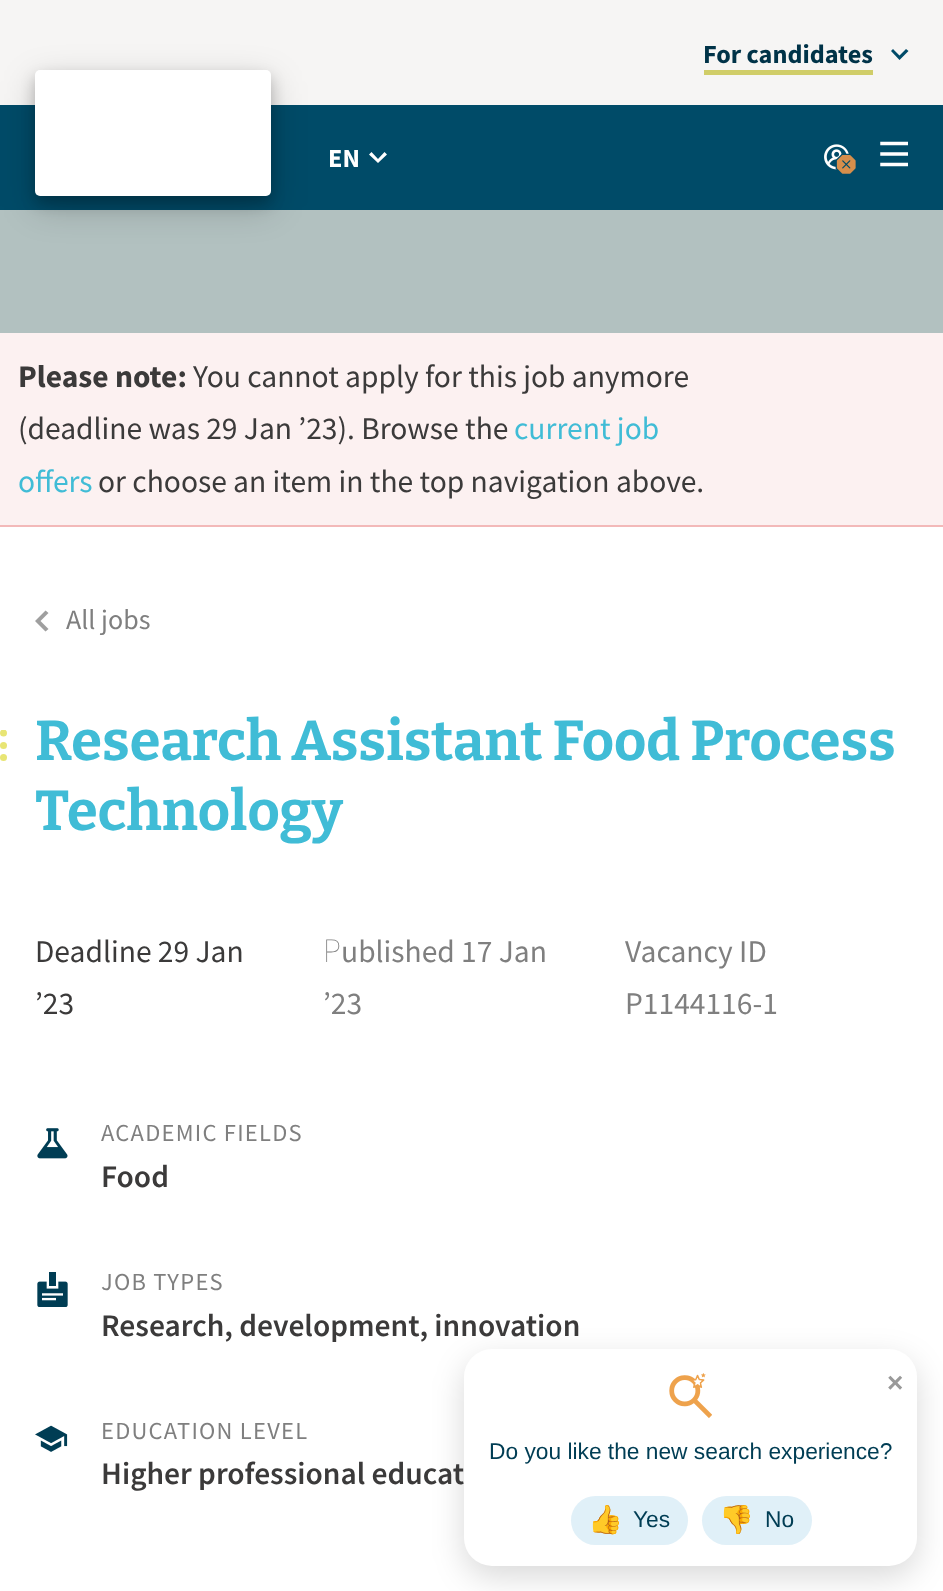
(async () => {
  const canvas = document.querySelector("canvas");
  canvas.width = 943;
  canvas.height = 1591;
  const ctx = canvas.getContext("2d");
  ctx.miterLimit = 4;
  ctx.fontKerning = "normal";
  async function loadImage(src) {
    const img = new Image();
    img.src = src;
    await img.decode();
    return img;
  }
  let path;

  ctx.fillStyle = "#ffffff";
  ctx.fillRect(0, 0, 943, 1591);
  ctx.fillStyle = "#f6f5f4";
  ctx.fillRect(0, 0, 943, 105);
  ctx.fillStyle = "#d0cd68";
  ctx.fillRect(704, 70, 169, 5);
  ctx.fillStyle = "#004b68";
  path = new Path2D("M891 51L899.5 60L908.5 51L906 49L899.5 55.5L893 49Z");
  ctx.fill(path);
  ctx.fillRect(0, 105, 943, 105);
  ctx.fillStyle = "#b2c1c0";
  ctx.fillRect(0, 210, 943, 123);
  ctx.fillStyle = "rgba(0, 0, 0, 0.2)";
  ctx.filter = "blur(17.5px)";
  ctx.beginPath();
  ctx.roundRect(35, 81, 236, 126, 5);
  ctx.fill();
  ctx.filter = "none";
  ctx.filter = "blur(7px)";
  ctx.beginPath();
  ctx.roundRect(35, 77, 236, 126, 5);
  ctx.fill();
  ctx.filter = "none";
  ctx.fillStyle = "#ffffff";
  ctx.beginPath();
  ctx.roundRect(35, 70, 236, 126, 5);
  ctx.fill();
  path = new Path2D("M369 154.5L378 163L387 154.5L384.5 152L378 159L371.5 152");
  ctx.fill(path);
  ctx.drawImage(await loadImage("img/1.png"), 824, 144, 32, 30);
  ctx.drawImage(await loadImage("img/2.png"), 880, 141, 28, 26);
  ctx.fillStyle = "#fcf1f1";
  ctx.fillRect(0, 333, 943, 192);
  ctx.fillStyle = "#f3b9b9";
  ctx.fillRect(0, 525, 943, 2);
  ctx.fillStyle = "#9f9f9f";
  path = new Path2D("M45.5 610.5L35 621L45.5 631.5L48.5 629L40.5 621L48.5 613Z");
  ctx.fill(path);
  ctx.save();
  ctx.beginPath();
  ctx.rect(0, 730, 7, 31);
  ctx.clip();
  ctx.fillStyle = "#e8e574";
  ctx.beginPath();
  ctx.arc(3.5, 733, 3.5, 0, Math.PI * 2);
  ctx.fill();
  ctx.restore();
  ctx.fillStyle = "#e8e574";
  ctx.beginPath();
  ctx.arc(3.5, 745.5, 3.5, 0, Math.PI * 2);
  ctx.fill();
  ctx.beginPath();
  ctx.arc(3.5, 757.5, 3.5, 0, Math.PI * 2);
  ctx.fill();
  ctx.drawImage(await loadImage("img/3.png"), 37, 1128, 31, 31);
  ctx.drawImage(await loadImage("img/4.png"), 37, 1272, 31, 35);
  ctx.drawImage(await loadImage("img/5.png"), 35, 1425, 33, 27);
  ctx.fillStyle = "rgba(0, 0, 0, 0.15)";
  ctx.filter = "blur(16px)";
  ctx.beginPath();
  ctx.roundRect(464, 1360, 453, 217, 28);
  ctx.fill();
  ctx.filter = "none";
  ctx.fillStyle = "#ffffff";
  ctx.beginPath();
  ctx.roundRect(464, 1349, 453, 217, 28);
  ctx.fill();
  ctx.drawImage(await loadImage("img/6.png"), 669, 1373, 43, 46);
  ctx.fillStyle = "#e0f0f8";
  ctx.beginPath();
  ctx.roundRect(571, 1496, 117, 49, 24.5);
  ctx.fill();
  ctx.beginPath();
  ctx.roundRect(702, 1496, 110, 49, 24.5);
  ctx.fill();
  ctx.font = "bold 26.25px Source Sans Pro";
  ctx.fillStyle = "#003348";
  ctx.fillText("For candidates", 703, 63);
  ctx.fillStyle = "#ffffff";
  ctx.fillText("EN", 328, 167);
  ctx.font = "bold 31.5px Source Sans Pro";
  ctx.fillStyle = "#3b3a3a";
  ctx.fillText("Please note:", 18, 387);
  ctx.font = "31.5px Source Sans Pro";
  ctx.fillText("You cannot apply for this job anymore", 193, 387);
  ctx.fillText("(deadline was 29 Jan ’23). Browse the", 18, 439);
  ctx.fillStyle = "#40bcd6";
  ctx.fillText("current job", 514, 439);
  ctx.fillText("offers", 18, 492);
  ctx.fillStyle = "#3b3a3a";
  ctx.fillText("or choose an item in the top navigation above.", 98, 492);
  ctx.font = "28px Source Sans Pro";
  ctx.fillStyle = "#7f7f7f";
  ctx.fillText("All jobs", 66, 629);
  ctx.font = "bold 56px Bitter";
  ctx.fillStyle = "#40bcd6";
  ctx.fillText("Research Assistant Food Process", 35, 760);
  ctx.fillText("Technology", 35, 830);
  ctx.font = "31.5px Source Sans Pro";
  ctx.fillStyle = "#3b3a3a";
  ctx.fillText("Deadline 29 Jan", 35, 962);
  ctx.fillText("’23", 35, 1014);
  ctx.font = "100 31.5px Noto Sans";
  ctx.fillStyle = "#7f7f7f";
  ctx.fillText("P", 323, 962);
  ctx.font = "31.5px Source Sans Pro";
  for (const [text, x, y] of [
    ["ublished 17 Jan", 341, 962],
    ["’23", 323, 1014],
    ["Vacancy ID", 625, 962],
    ["P1144116-1", 625, 1014],
  ]) {
    ctx.fillText(text, x, y);
  }
  ctx.letterSpacing = "1.25px";
  ctx.font = "24.5px Source Sans Pro";
  ctx.fillText("ACADEMIC FIELDS", 101, 1141);
  ctx.letterSpacing = "0px";
  ctx.font = "600 31.5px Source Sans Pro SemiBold";
  ctx.fillStyle = "#3b3a3a";
  ctx.fillText("Food", 101, 1187);
  ctx.letterSpacing = "1.25px";
  ctx.font = "24.5px Source Sans Pro";
  ctx.fillStyle = "#7f7f7f";
  ctx.fillText("JOB TYPES", 101, 1290);
  ctx.letterSpacing = "0px";
  ctx.font = "600 31.5px Source Sans Pro SemiBold";
  ctx.fillStyle = "#3b3a3a";
  ctx.fillText("Research, development, innovation", 101, 1336);
  ctx.letterSpacing = "1.25px";
  ctx.font = "24.5px Source Sans Pro";
  ctx.fillStyle = "#7f7f7f";
  ctx.fillText("EDUCATION LEVEL", 101, 1439);
  ctx.letterSpacing = "0px";
  ctx.font = "600 31.5px Source Sans Pro SemiBold";
  ctx.fillStyle = "#3b3a3a";
  ctx.fillText("Higher professional educat", 101, 1484);
  ctx.font = "bold 28px Liberation Sans";
  ctx.fillStyle = "#999999";
  ctx.fillText("×", 887, 1392);
  ctx.font = "22.75px Liberation Sans";
  ctx.fillStyle = "#003d54";
  ctx.fillText("Do you like the new search experience?", 489, 1459);
  ctx.font = "28px Noto Color Emoji";
  ctx.fillText("👍", 588, 1529);
  ctx.font = "22.75px Liberation Sans";
  ctx.fillText("Yes", 633, 1527);
  ctx.font = "28px Noto Color Emoji";
  ctx.fillText("👎", 719, 1529);
  ctx.font = "22.75px Liberation Sans";
  ctx.fillText("No", 765, 1527);
})();
